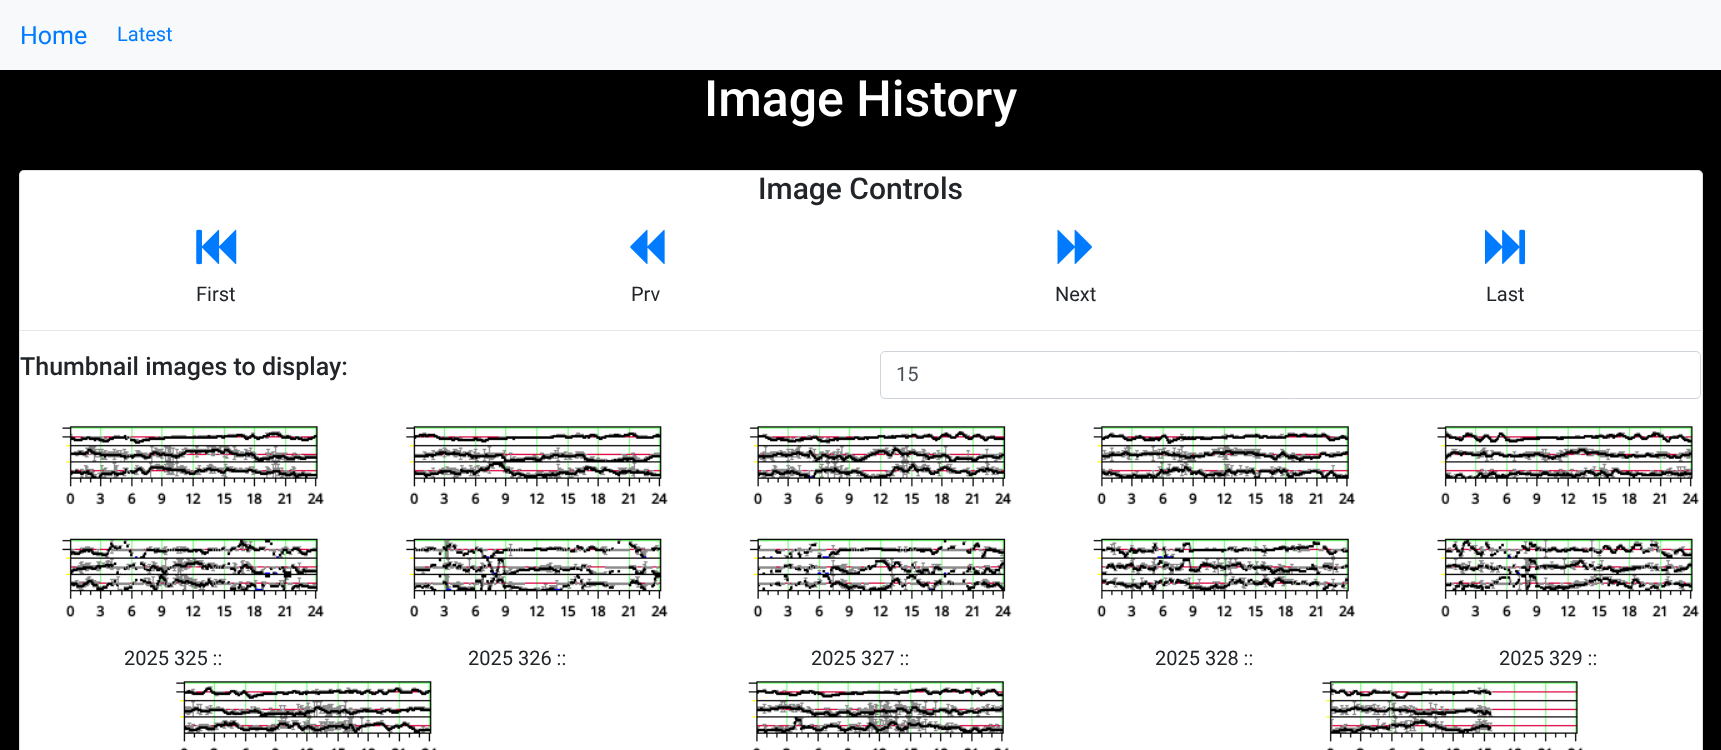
(async () => {
  const canvas = document.querySelector("canvas");
  canvas.width = 1721;
  canvas.height = 750;
  const ctx = canvas.getContext("2d");
  ctx.miterLimit = 4;
  ctx.fontKerning = "normal";
  async function loadImage(src) {
    const img = new Image();
    img.src = src;
    await img.decode();
    return img;
  }

  ctx.fillStyle = "#000000";
  ctx.fillRect(0, 0, 1721, 750);
  ctx.fillStyle = "#f8f9fa";
  ctx.fillRect(0, 0, 1721, 70);
  ctx.fillStyle = "#ffffff";
  ctx.beginPath();
  ctx.roundRect(19, 170, 1684, 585, 5);
  ctx.fill();
  ctx.beginPath();
  ctx.roundRect(19.5, 170.5, 1683, 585, 4.5);
  ctx.strokeStyle = "rgba(0, 0, 0, 0.12)";
  ctx.stroke();
  ctx.drawImage(await loadImage("img/1.png"), 196, 229, 41, 36);
  ctx.drawImage(await loadImage("img/2.png"), 630, 229, 35, 36);
  ctx.drawImage(await loadImage("img/3.png"), 1057, 229, 35, 36);
  ctx.drawImage(await loadImage("img/4.png"), 1485, 229, 40, 36);
  ctx.fillStyle = "#e6e6e6";
  ctx.fillRect(20, 330, 1681, 1);
  ctx.beginPath();
  ctx.roundRect(880.5, 351.5, 820, 47, 4.5);
  ctx.strokeStyle = "#ced4da";
  ctx.stroke();
  ctx.drawImage(await loadImage("img/5.png"), 62, 426, 262, 192);
  ctx.drawImage(await loadImage("img/6.png"), 406, 426, 262, 192);
  ctx.drawImage(await loadImage("img/7.png"), 749, 426, 263, 192);
  ctx.drawImage(await loadImage("img/8.png"), 1093, 426, 262, 192);
  ctx.drawImage(await loadImage("img/9.png"), 1437, 426, 262, 192);
  ctx.drawImage(await loadImage("img/10.png"), 176, 681, 261, 69);
  ctx.drawImage(await loadImage("img/11.png"), 748, 681, 261, 69);
  ctx.drawImage(await loadImage("img/12.png"), 1322, 681, 261, 69);
  ctx.font = "25px Roboto";
  ctx.fillStyle = "#007bff";
  ctx.fillText("Home", 20, 44);
  ctx.font = "20px Roboto";
  ctx.fillText("Latest", 117, 41);
  ctx.font = "500 50px Roboto";
  ctx.fillStyle = "#ffffff";
  ctx.fillText("Image History", 704, 116);
  ctx.font = "500 30px Roboto";
  ctx.fillStyle = "#212529";
  ctx.fillText("Image Controls", 758, 199);
  ctx.font = "20px Roboto";
  for (const [text, x, y] of [
    ["First", 196, 301],
    ["Prv", 631, 301],
    ["Next", 1055, 301],
    ["Last", 1486, 301],
  ]) {
    ctx.fillText(text, x, y);
  }
  ctx.font = "500 25px Roboto";
  ctx.fillText("Thumbnail images to display:", 20, 375);
  ctx.font = "20px Roboto";
  ctx.fillStyle = "#495057";
  ctx.fillText("15", 896, 381);
  ctx.fillStyle = "#212529";
  for (const [text, x, y] of [
    ["2025 325 ::", 124, 665],
    ["2025 326 ::", 468, 665],
    ["2025 327 ::", 811, 665],
    ["2025 328 ::", 1155, 665],
    ["2025 329 ::", 1499, 665],
  ]) {
    ctx.fillText(text, x, y);
  }
})();
